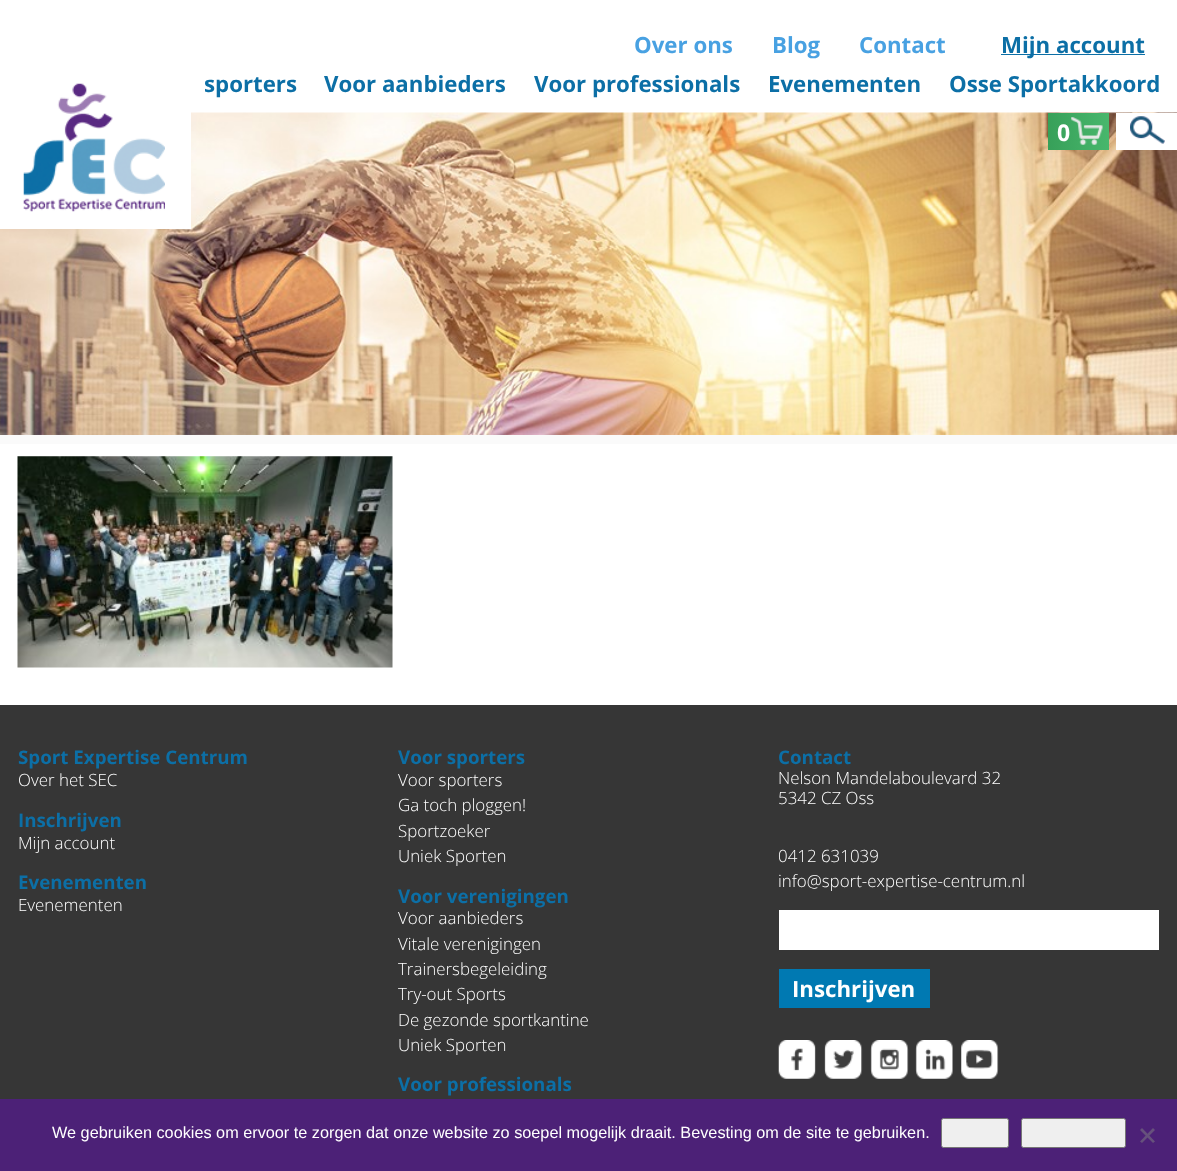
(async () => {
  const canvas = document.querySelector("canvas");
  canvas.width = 1177;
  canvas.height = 1171;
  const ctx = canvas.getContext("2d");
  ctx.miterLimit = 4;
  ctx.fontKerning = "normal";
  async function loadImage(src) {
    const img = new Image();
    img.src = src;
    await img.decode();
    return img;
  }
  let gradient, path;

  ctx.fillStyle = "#fafafa";
  ctx.fillRect(0, 0, 1177, 1171);
  ctx.fillStyle = "#ffffff";
  ctx.fillRect(0, 0, 1177, 113);
  ctx.drawImage(await loadImage("img/4.png"), 0, 112, 1177, 323);
  ctx.fillRect(0, 112, 191, 117);
  ctx.drawImage(await loadImage("img/1.png"), 23, 83, 142, 129);
  ctx.fillStyle = "#0c6fa6";
  ctx.fillRect(1001, 54, 144, 1);
  gradient = ctx.createLinearGradient(1048, 131, 1109, 131);
  gradient.addColorStop(0, "#37a059");
  gradient.addColorStop(1, "#48b76c");
  ctx.fillStyle = gradient;
  ctx.fillRect(1048, 113, 61, 37);
  ctx.drawImage(await loadImage("img/2.png"), 1071, 117, 32, 28);
  ctx.fillStyle = "#ffffff";
  ctx.fillRect(1116, 113, 61, 37);
  ctx.drawImage(await loadImage("img/3.png"), 1130, 116, 35, 28);
  ctx.fillRect(0, 444, 1177, 261);
  ctx.drawImage(await loadImage("img/5.png"), 17, 456, 376, 212);
  for (const [x, y, w, h, color] of [
    [0, 705, 1177, 394, "#363636"],
    [779, 910, 380, 40, "#ffffff"],
    [779, 969, 151, 39, "#0079b2"],
  ]) {
    ctx.fillStyle = color;
    ctx.fillRect(x, y, w, h);
  }
  ctx.drawImage(await loadImage("img/6.png"), 778, 1040, 38, 39);
  ctx.drawImage(await loadImage("img/7.png"), 824, 1040, 39, 39);
  ctx.drawImage(await loadImage("img/8.png"), 870, 1040, 39, 39);
  ctx.drawImage(await loadImage("img/9.png"), 915, 1040, 38, 39);
  ctx.drawImage(await loadImage("img/10.png"), 961, 1040, 38, 39);
  ctx.fillStyle = "#4c2177";
  ctx.fillRect(0, 1099, 1177, 72);
  ctx.fillStyle = "#efefef";
  ctx.beginPath();
  ctx.roundRect(941.5, 1118.5, 67, 29, 2);
  ctx.fill();
  ctx.strokeStyle = "#767676";
  ctx.stroke();
  ctx.beginPath();
  ctx.roundRect(1021.5, 1118.5, 104, 29, 2);
  ctx.fill();
  ctx.stroke();
  ctx.fillStyle = "#66517c";
  path = new Path2D("M1153 1128L1155 1130L1142 1143L1140 1141.5Z");
  ctx.fill(path);
  path = new Path2D("M1140 1130L1142 1128L1155 1141.5L1153 1143Z");
  ctx.fill(path);
  ctx.font = "bold 22.25px Open Sans";
  ctx.fillStyle = "#48a1e2";
  for (const [text, x, y] of [
    ["Over ons", 634, 53],
    ["Blog", 772, 53],
    ["Contact", 859, 53],
  ]) {
    ctx.fillText(text, x, y);
  }
  ctx.fillStyle = "#0c6fa6";
  for (const [text, x, y] of [
    ["Mijn account", 1001, 53],
    ["sporters", 204, 92],
    ["Voor aanbieders", 324, 92],
    ["Voor professionals", 534, 92],
    ["Evenementen", 768, 92],
    ["Osse Sportakkoord", 949, 92],
  ]) {
    ctx.fillText(text, x, y);
  }
  ctx.font = "bold 23px Open Sans";
  ctx.fillStyle = "#ffffff";
  ctx.fillText("0", 1057, 141);
  ctx.font = "bold 18.75px Open Sans";
  ctx.fillStyle = "#0c6fa6";
  ctx.fillText("Sport Expertise Centrum", 18, 764);
  ctx.font = "300 16.9px Open Sans";
  ctx.fillStyle = "#ffffff";
  ctx.fillText("Over het SEC", 18, 786);
  ctx.font = "bold 18.75px Open Sans";
  ctx.fillStyle = "#0c6fa6";
  ctx.fillText("Inschrijven", 18, 827);
  ctx.font = "300 16.9px Open Sans";
  ctx.fillStyle = "#ffffff";
  ctx.fillText("Mijn account", 18, 849);
  ctx.font = "bold 18.75px Open Sans";
  ctx.fillStyle = "#0c6fa6";
  ctx.fillText("Evenementen", 18, 889);
  ctx.font = "300 16.9px Open Sans";
  ctx.fillStyle = "#ffffff";
  ctx.fillText("Evenementen", 18, 911);
  ctx.font = "bold 18.75px Open Sans";
  ctx.fillStyle = "#0c6fa6";
  ctx.fillText("Voor sporters", 398, 764);
  ctx.font = "300 16.9px Open Sans";
  ctx.fillStyle = "#ffffff";
  for (const [text, x, y] of [
    ["Voor sporters", 398, 786],
    ["Ga toch ploggen!", 398, 811],
    ["Sportzoeker", 398, 837],
    ["Uniek Sporten", 398, 862],
  ]) {
    ctx.fillText(text, x, y);
  }
  ctx.font = "bold 18.75px Open Sans";
  ctx.fillStyle = "#0c6fa6";
  ctx.fillText("Voor verenigingen", 398, 903);
  ctx.font = "300 16.9px Open Sans";
  ctx.fillStyle = "#ffffff";
  for (const [text, x, y] of [
    ["Voor aanbieders", 398, 924],
    ["Vitale verenigingen", 398, 950],
    ["Trainersbegeleiding", 398, 975],
    ["Try-out Sports", 398, 1000],
    ["De gezonde sportkantine", 398, 1026],
    ["Uniek Sporten", 398, 1051],
  ]) {
    ctx.fillText(text, x, y);
  }
  ctx.font = "bold 18.75px Open Sans";
  ctx.fillStyle = "#0c6fa6";
  ctx.fillText("Voor professionals", 398, 1091);
  ctx.fillText("Contact", 778, 764);
  ctx.font = "300 16.9px Open Sans";
  ctx.fillStyle = "#ffffff";
  for (const [text, x, y] of [
    ["Nelson Mandelaboulevard 32", 778, 784],
    ["5342 CZ Oss", 778, 804],
    ["0412 631039", 778, 862],
    ["info@sport-expertise-centrum.nl", 778, 887],
  ]) {
    ctx.fillText(text, x, y);
  }
  ctx.font = "bold 22.25px Open Sans";
  ctx.fillText("Inschrijven", 792, 997);
  ctx.font = "16.25px Liberation Sans";
  ctx.fillText("We gebruiken cookies om ervoor te zorgen dat onze website zo soepel mogelijk draait. Bevesting om de site te gebruiken.", 52, 1138);
})();
